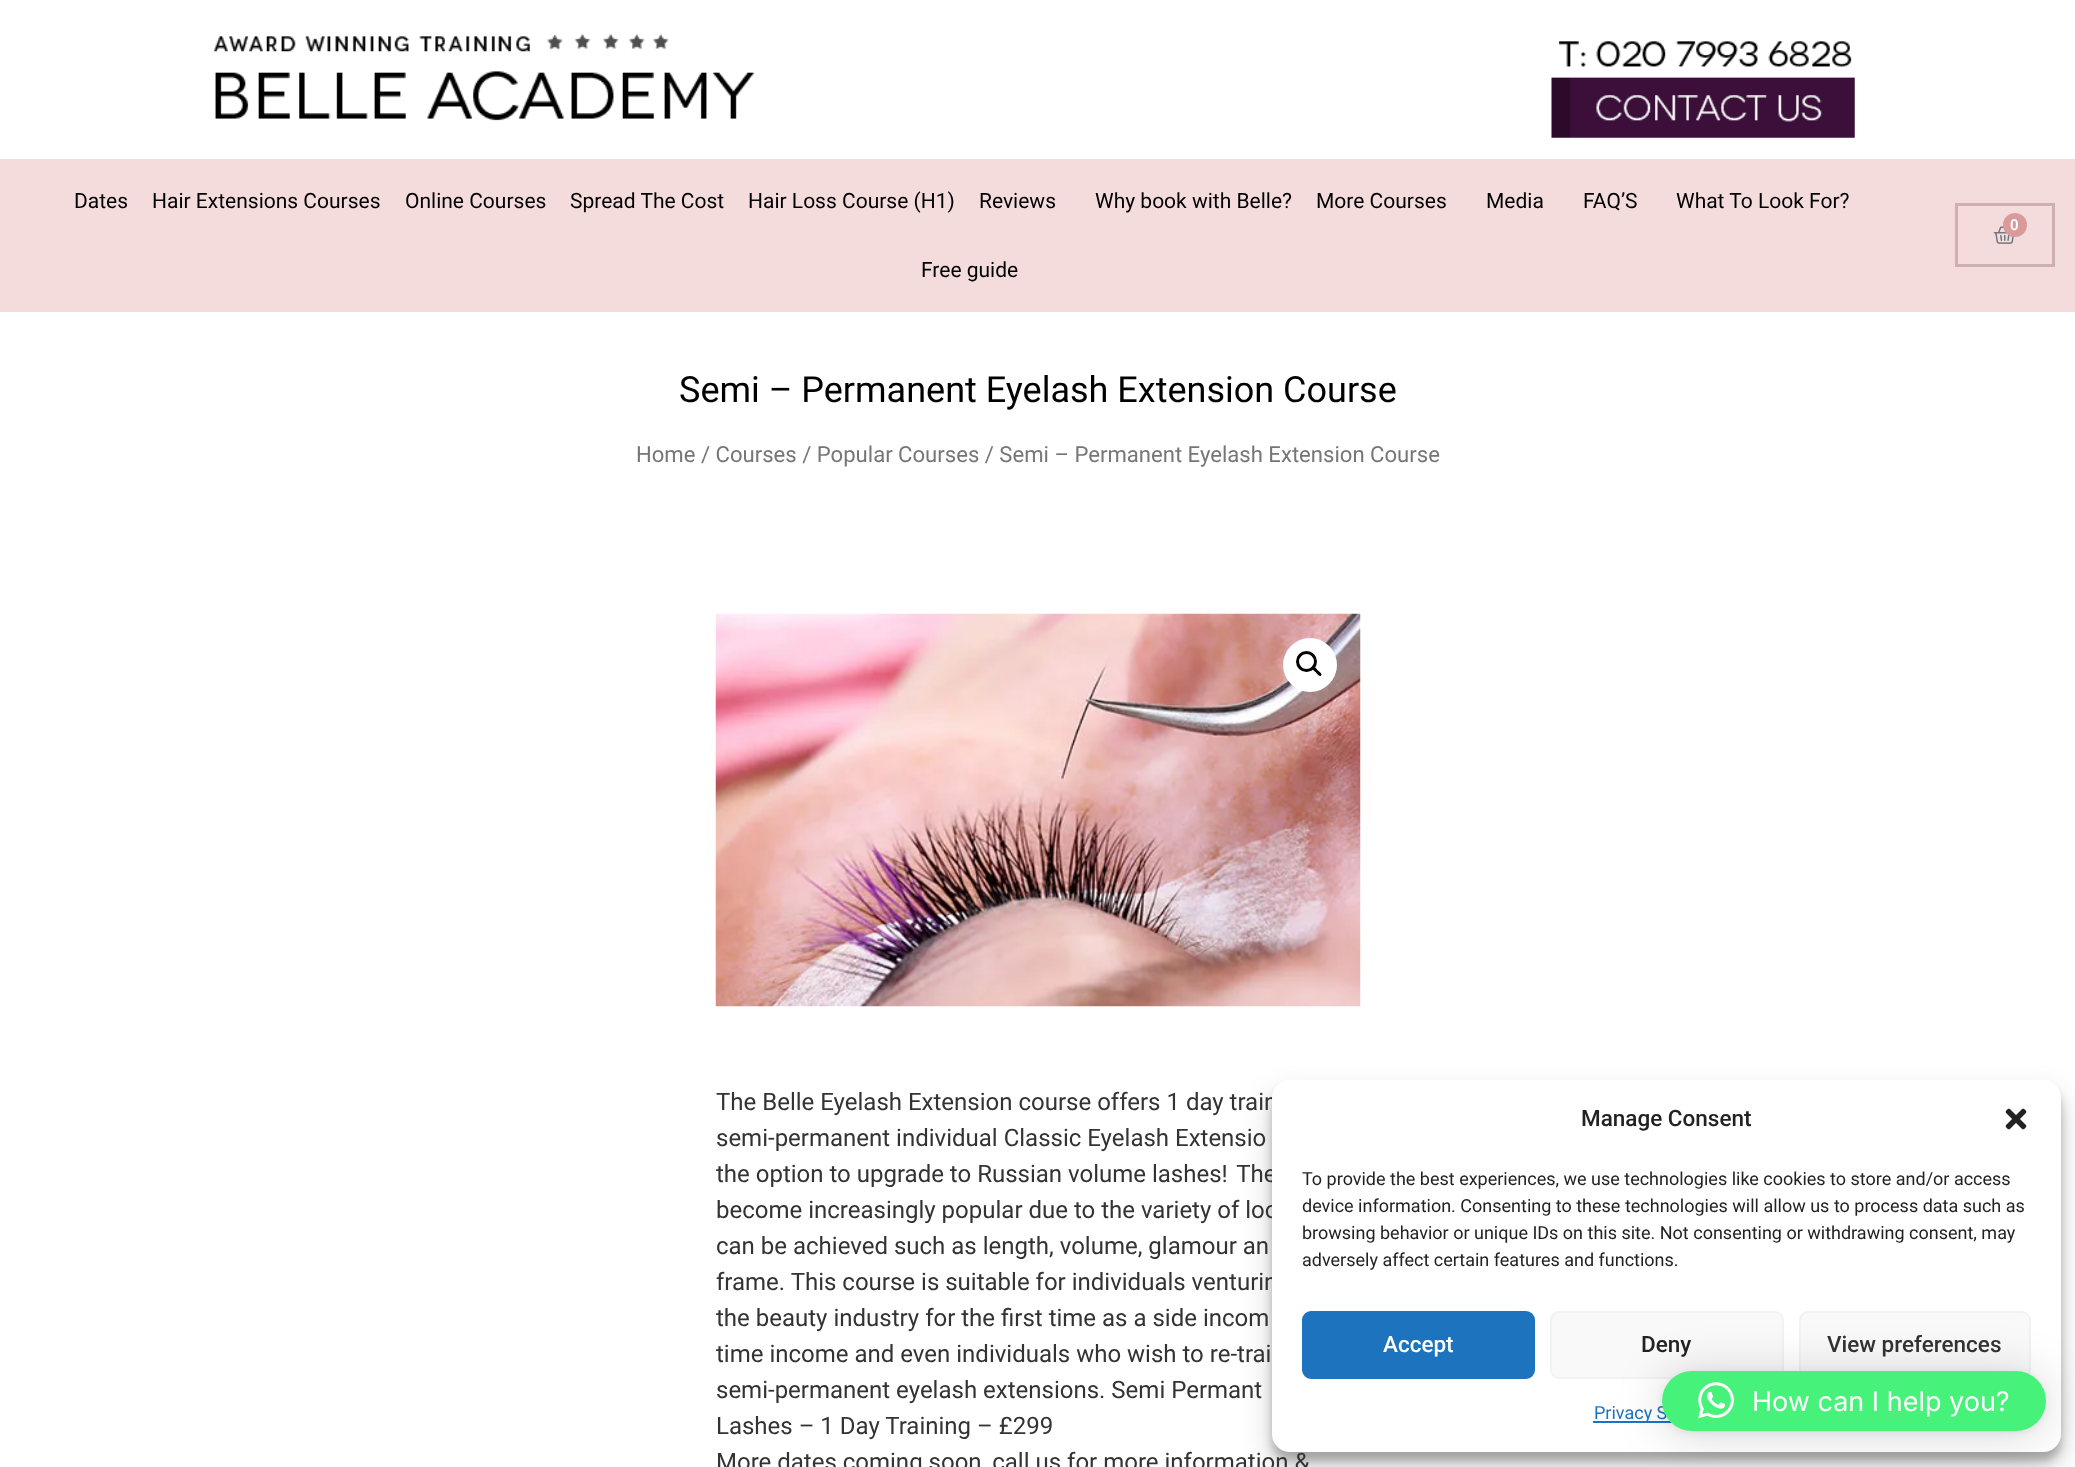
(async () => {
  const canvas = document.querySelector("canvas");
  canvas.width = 2075;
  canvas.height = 1467;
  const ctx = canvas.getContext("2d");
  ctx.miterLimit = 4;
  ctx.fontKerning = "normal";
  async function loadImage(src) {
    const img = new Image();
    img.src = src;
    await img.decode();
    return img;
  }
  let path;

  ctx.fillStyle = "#ffffff";
  ctx.fillRect(0, 0, 2075, 1467);
  ctx.drawImage(await loadImage("img/1.png"), 214, 33, 541, 88);
  ctx.drawImage(await loadImage("img/2.png"), 1551, 41, 304, 97);
  ctx.fillStyle = "#f4dcdc";
  ctx.fillRect(0, 159, 2075, 153);
  ctx.strokeStyle = "#cfb0b0";
  ctx.lineWidth = 3;
  ctx.strokeRect(1956.5, 204.5, 97, 61);
  ctx.drawImage(await loadImage("img/3.png"), 1993, 226, 21, 18);
  ctx.fillStyle = "#da9a9a";
  ctx.beginPath();
  ctx.arc(2015, 225, 12, 0, Math.PI * 2);
  ctx.fill();
  ctx.drawImage(await loadImage("img/4.png"), 715, 613, 646, 394);
  ctx.fillStyle = "#ffffff";
  ctx.beginPath();
  ctx.arc(1310, 665, 27, 0, Math.PI * 2);
  ctx.fill();
  ctx.beginPath();
  ctx.arc(1306.5, 661.5, 9, 0, Math.PI * 2);
  ctx.strokeStyle = "#000000";
  ctx.stroke();
  ctx.fillStyle = "#000000";
  path = new Path2D("M1313 667C1314.5 665.5 1317 669.5 1318 670.5C1319 671.5 1323 674 1321 675.5C1319.5 677.5 1317 673.5 1316 672.5C1315 671.5 1311 669 1313 667Z");
  ctx.fill(path);
  ctx.fillStyle = "rgba(0, 0, 0, 0.23)";
  ctx.filter = "blur(4.5px)";
  ctx.beginPath();
  ctx.roundRect(1272, 1089, 789, 372, 18);
  ctx.fill();
  ctx.filter = "none";
  ctx.fillStyle = "rgba(0, 0, 0, 0.19)";
  ctx.filter = "blur(15px)";
  ctx.beginPath();
  ctx.roundRect(1272, 1095, 789, 372, 18);
  ctx.fill();
  ctx.filter = "none";
  ctx.font = "21px Roboto";
  ctx.fillStyle = "#000000";
  for (const [text, x, y] of [
    ["Dates", 74, 208],
    ["Hair Extensions Courses", 152, 208],
    ["Online Courses", 405, 208],
    ["Spread The Cost", 570, 208],
    ["Hair Loss Course (H1)", 748, 208],
    ["Reviews", 979, 208],
    ["Why book with Belle?", 1095, 208],
    ["More Courses", 1316, 208],
    ["Media", 1486, 208],
    ["FAQ’S", 1583, 208],
    ["What To Look For?", 1676, 208],
    ["Free guide", 921, 277],
  ]) {
    ctx.fillText(text, x, y);
  }
  ctx.font = "600 15px Roboto";
  ctx.fillStyle = "#ffffff";
  ctx.fillText("0", 2010, 230);
  ctx.font = "36px Roboto";
  ctx.fillStyle = "#000000";
  ctx.fillText("Semi – Permanent Eyelash Extension Course", 679, 402);
  ctx.font = "22.1px Roboto";
  ctx.fillStyle = "#767676";
  ctx.fillText("Home / Courses / Popular Courses / Semi – Permanent Eyelash Extension Course", 636, 462);
  ctx.font = "24px Roboto";
  ctx.fillStyle = "#333333";
  for (const [text, x, y] of [
    ["The Belle Eyelash Extension course offers 1 day train", 716, 1110],
    ["semi-permanent individual Classic Eyelash Extensio", 716, 1146],
    ["the option to upgrade to Russian volume lashes!  The", 716, 1182],
    ["become increasingly popular due to the variety of loo", 716, 1218],
    ["can be achieved such as length, volume, glamour an", 716, 1254],
    ["frame. This course is suitable for individuals venturin", 716, 1290],
    ["the beauty industry for the first time as a side incom", 716, 1326],
    ["time income and even individuals who wish to re-trai", 716, 1362],
    ["semi-permanent eyelash extensions. Semi Permant", 716, 1398],
    ["Lashes – 1 Day Training – £299", 716, 1434],
    ["More dates coming soon, call us for more information &", 716, 1470],
  ]) {
    ctx.fillText(text, x, y);
  }
  ctx.fillStyle = "#ffffff";
  ctx.beginPath();
  ctx.roundRect(1272, 1080, 789, 372, 18);
  ctx.fill();
  ctx.font = "500 22.5px Roboto";
  ctx.fillStyle = "#222222";
  ctx.fillText("Manage Consent", 1581, 1126);
  ctx.drawImage(await loadImage("img/5.png"), 2005, 1108, 22, 22);
  ctx.font = "18px Roboto";
  for (const [text, x, y] of [
    ["To provide the best experiences, we use technologies like cookies to store and/or access", 1302, 1185],
    ["device information. Consenting to these technologies will allow us to process data such as", 1302, 1212],
    ["browsing behavior or unique IDs on this site. Not consenting or withdrawing consent, may", 1302, 1239],
    ["adversely affect certain features and functions.", 1302, 1266],
  ]) {
    ctx.fillText(text, x, y);
  }
  ctx.fillStyle = "#1e73be";
  ctx.beginPath();
  ctx.roundRect(1303, 1312, 231, 66, 8);
  ctx.fill();
  ctx.strokeStyle = "#1e73be";
  ctx.lineWidth = 2;
  ctx.stroke();
  ctx.font = "500 22.5px Roboto";
  ctx.fillStyle = "#ffffff";
  ctx.fillText("Accept", 1383, 1352);
  ctx.fillStyle = "#f9f9f9";
  ctx.beginPath();
  ctx.roundRect(1551, 1312, 232, 66, 8);
  ctx.fill();
  ctx.strokeStyle = "#f2f2f2";
  ctx.stroke();
  ctx.fillStyle = "#222222";
  ctx.fillText("Deny", 1641, 1352);
  ctx.fillStyle = "#f9f9f9";
  ctx.beginPath();
  ctx.roundRect(1800, 1312, 230, 66, 8);
  ctx.fill();
  ctx.stroke();
  ctx.fillStyle = "#333333";
  ctx.fillText("View preferences", 1827, 1352);
  ctx.fillStyle = "#1e73be";
  ctx.fillRect(1593, 1421, 79, 2);
  ctx.font = "18px Roboto";
  ctx.fillText("Privacy S", 1594, 1419);
  ctx.fillStyle = "rgba(0, 0, 0, 0.16)";
  ctx.filter = "blur(24px)";
  ctx.beginPath();
  ctx.roundRect(1662, 1374, 384, 60, 30);
  ctx.fill();
  ctx.filter = "none";
  ctx.fillStyle = "rgba(0, 0, 0, 0.06)";
  ctx.filter = "blur(4.5px)";
  ctx.beginPath();
  ctx.roundRect(1662, 1373, 384, 60, 30);
  ctx.fill();
  ctx.filter = "none";
  ctx.fillStyle = "#46f279";
  ctx.beginPath();
  ctx.roundRect(1662, 1371, 384, 60, 30);
  ctx.fill();
  ctx.drawImage(await loadImage("img/6.png"), 1698, 1382, 36, 37);
  ctx.font = "27px Inter";
  ctx.fillStyle = "#ffffff";
  ctx.fillText("How can I help you?", 1752, 1411);
})();
